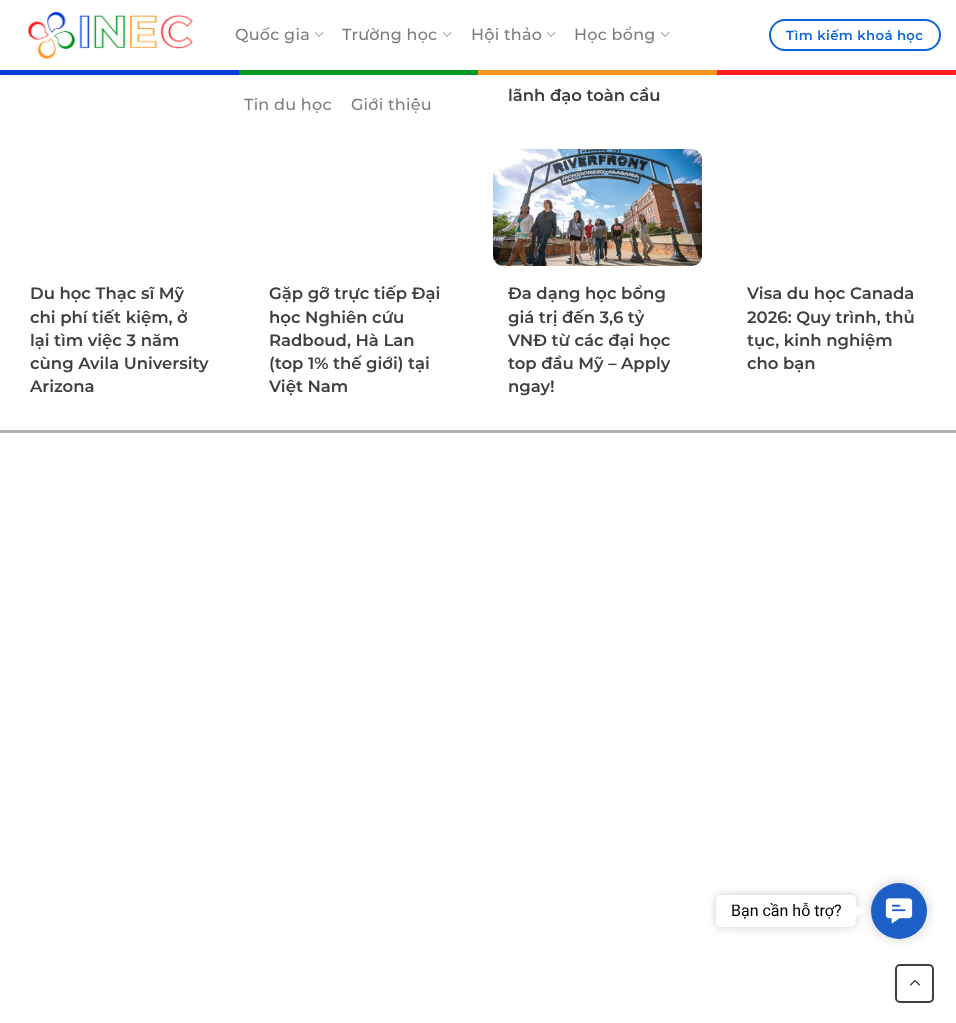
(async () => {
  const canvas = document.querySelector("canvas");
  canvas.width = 956;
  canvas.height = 1023;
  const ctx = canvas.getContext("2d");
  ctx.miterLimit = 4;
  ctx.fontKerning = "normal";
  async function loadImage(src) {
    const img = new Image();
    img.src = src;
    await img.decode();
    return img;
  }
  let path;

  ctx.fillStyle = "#ffffff";
  ctx.fillRect(0, 0, 956, 1023);
  ctx.fillStyle = "rgba(0, 0, 0, 0.15)";
  ctx.filter = "blur(5px)";
  ctx.beginPath();
  ctx.rect(1, 1, 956, 70);
  ctx.fill();
  ctx.filter = "none";
  ctx.fillStyle = "#ffffff";
  ctx.fillRect(0, 0, 956, 70);
  ctx.drawImage(await loadImage("img/1.png"), 28, 12, 165, 47);
  ctx.drawImage(await loadImage("img/2.png"), 314, 31, 10, 6);
  ctx.drawImage(await loadImage("img/2.png"), 442, 31, 10, 6);
  ctx.drawImage(await loadImage("img/2.png"), 546, 31, 10, 6);
  ctx.drawImage(await loadImage("img/2.png"), 660, 31, 10, 6);
  ctx.beginPath();
  ctx.roundRect(770, 20, 170, 30, 15);
  ctx.strokeStyle = "#0c65d8";
  ctx.lineWidth = 2;
  ctx.stroke();
  for (const [x, y, w, h, color] of [
    [0, 70, 239, 5, "#003cdc"],
    [239, 70, 239, 5, "#009925"],
    [478, 70, 239, 5, "#ff961e"],
    [717, 70, 239, 5, "#ff1e23"],
  ]) {
    ctx.fillStyle = color;
    ctx.fillRect(x, y, w, h);
  }
  ctx.drawImage(await loadImage("img/3.png"), 493, 149, 209, 117);
  ctx.fillStyle = "#b0b0b0";
  ctx.fillRect(0, 430, 956, 3);
  ctx.beginPath();
  ctx.roundRect(896, 965, 37, 37, 4);
  ctx.strokeStyle = "#3c4043";
  ctx.stroke();
  ctx.drawImage(await loadImage("img/4.png"), 909, 979, 12, 7);
  ctx.fillStyle = "rgba(0, 0, 0, 0.2)";
  ctx.filter = "blur(6px)";
  ctx.beginPath();
  ctx.roundRect(871, 883, 56, 56, 28);
  ctx.fill();
  ctx.filter = "none";
  ctx.fillStyle = "#1c5fc6";
  ctx.beginPath();
  ctx.arc(899, 911, 28, 0, Math.PI * 2);
  ctx.fill();
  ctx.fillStyle = "rgba(0, 0, 0, 0.2)";
  ctx.filter = "blur(5px)";
  ctx.beginPath();
  ctx.roundRect(716, 895, 140, 32, 5);
  ctx.fill();
  ctx.filter = "none";
  ctx.fillStyle = "#ffffff";
  ctx.beginPath();
  ctx.roundRect(716, 895, 140, 32, 5);
  ctx.fill();
  path = new Path2D("M856 916V906L867 911Z");
  ctx.fill(path);
  ctx.drawImage(await loadImage("img/5.png"), 885, 898, 28, 26);
  ctx.letterSpacing = "0.25px";
  ctx.font = "500 16px Montserrat";
  ctx.fillStyle = "#7d7d7d";
  for (const [text, x, y] of [
    ["Quốc gia", 235, 40],
    ["Trường học", 342, 40],
    ["Hội thảo", 471, 40],
    ["Học bổng", 574, 40],
    ["Tin du học", 244, 110],
    ["Giới thiệu", 351, 110],
  ]) {
    ctx.fillText(text, x, y);
  }
  ctx.letterSpacing = "0.4px";
  ctx.font = "600 13.25px Montserrat";
  ctx.fillStyle = "#0c65d8";
  ctx.fillText("Tìm kiếm khoá học", 786, 40);
  ctx.letterSpacing = "0px";
  ctx.font = "600 16.5px Montserrat";
  ctx.fillStyle = "#3c4043";
  for (const [text, x, y] of [
    ["lãnh đạo toàn cầu", 508, 101],
    ["Du học Thạc sĩ Mỹ", 30, 299],
    ["chi phí tiết kiệm, ở", 30, 323],
    ["lại tìm việc 3 năm", 30, 346],
    ["cùng Avila University", 30, 369],
    ["Arizona", 30, 392],
    ["Gặp gỡ trực tiếp Đại", 269, 299],
    ["học Nghiên cứu", 269, 323],
    ["Radboud, Hà Lan", 269, 346],
    ["(top 1% thế giới) tại", 269, 369],
    ["Việt Nam", 269, 392],
    ["Đa dạng học bổng", 508, 299],
    ["giá trị đến 3,6 tỷ", 508, 323],
    ["VNĐ từ các đại học", 508, 346],
    ["top đầu Mỹ – Apply", 508, 369],
    ["ngay!", 508, 392],
    ["Visa du học Canada", 747, 299],
    ["2026: Quy trình, thủ", 747, 323],
    ["tục, kinh nghiệm", 747, 346],
    ["cho bạn", 747, 369],
  ]) {
    ctx.fillText(text, x, y);
  }
  ctx.font = "16px Roboto";
  ctx.fillStyle = "#000000";
  ctx.fillText("Bạn cần hỗ trợ?", 731, 916);
})();
